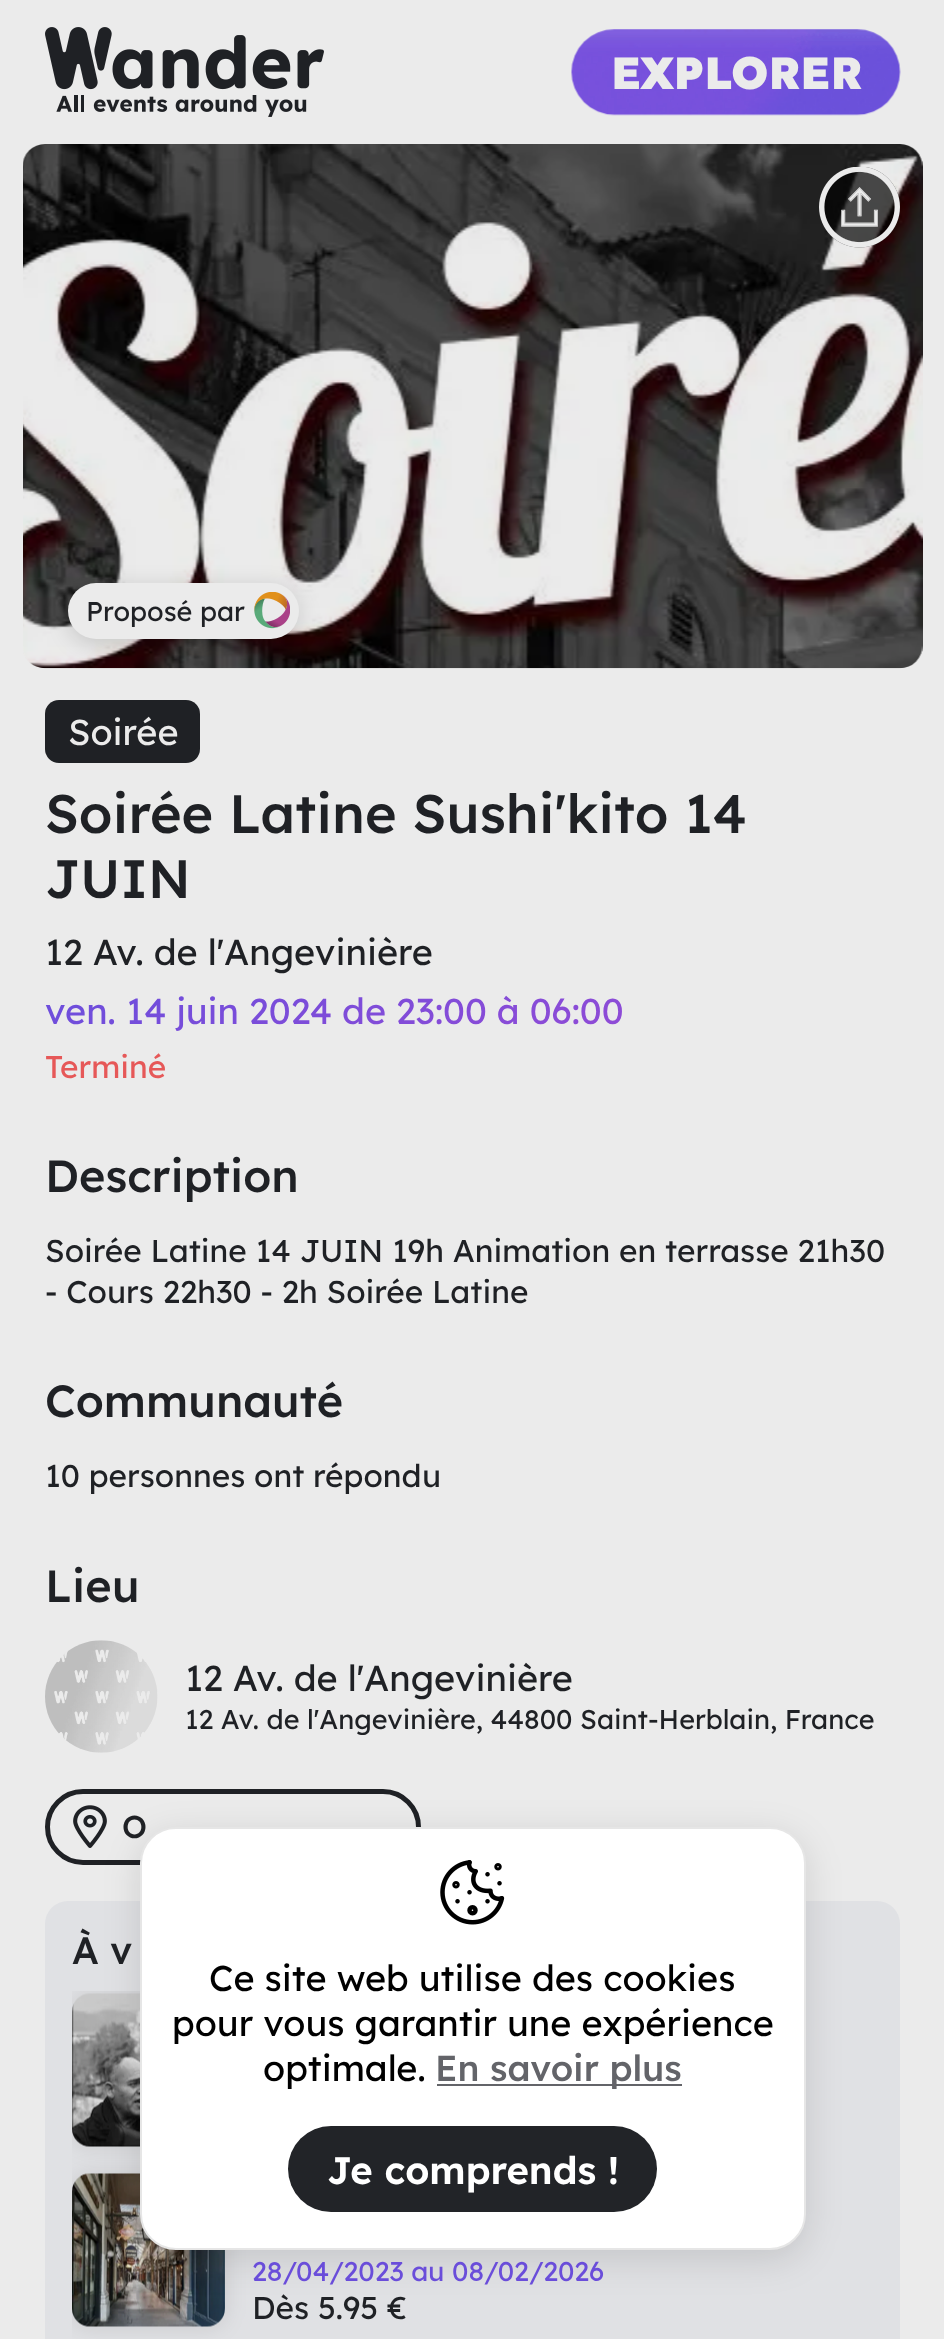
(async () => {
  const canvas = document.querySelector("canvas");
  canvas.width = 944;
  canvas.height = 2339;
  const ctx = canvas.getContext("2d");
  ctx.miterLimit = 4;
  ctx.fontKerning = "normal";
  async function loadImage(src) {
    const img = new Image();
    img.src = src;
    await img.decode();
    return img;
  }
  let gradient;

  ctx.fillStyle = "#ebebeb";
  ctx.fillRect(0, 0, 944, 2339);
  ctx.drawImage(await loadImage("img/1.png"), 45, 27, 279, 90);
  ctx.drawImage(await loadImage("img/2.png"), 571, 29, 330, 87);
  ctx.drawImage(await loadImage("img/4.png"), 23, 144, 900, 525);
  ctx.drawImage(await loadImage("img/3.png"), 819, 167, 81, 81);
  ctx.fillStyle = "rgba(0, 0, 0, 0.15)";
  ctx.filter = "blur(11px)";
  ctx.beginPath();
  ctx.roundRect(68, 587, 231, 57, 28.5);
  ctx.fill();
  ctx.filter = "none";
  ctx.fillStyle = "#ebebeb";
  ctx.beginPath();
  ctx.roundRect(68, 583, 231, 56, 28);
  ctx.fill();
  ctx.drawImage(await loadImage("img/5.png"), 254, 592, 36, 37);
  ctx.fillStyle = "#1f2125";
  ctx.beginPath();
  ctx.roundRect(45, 700, 155, 63, 14);
  ctx.fill();
  ctx.drawImage(await loadImage("img/6.png"), 45, 1640, 113, 113);
  ctx.beginPath();
  ctx.roundRect(47.5, 1791.5, 371, 71, 35.5);
  ctx.strokeStyle = "#1f2125";
  ctx.lineWidth = 5;
  ctx.stroke();
  ctx.drawImage(await loadImage("img/7.png"), 73, 1805, 34, 43);
  ctx.fillStyle = "#e0e1e4";
  ctx.beginPath();
  ctx.roundRect(45, 1901, 855, 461, 23);
  ctx.fill();
  ctx.save();
  ctx.beginPath();
  ctx.rect(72, 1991, 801, 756);
  ctx.clip();
  ctx.fillStyle = "rgba(0, 0, 0, 0.1)";
  ctx.filter = "blur(11px)";
  ctx.beginPath();
  ctx.roundRect(72, 1994, 153, 153, 18);
  ctx.fill();
  ctx.filter = "none";
  ctx.restore();
  ctx.drawImage(await loadImage("img/8.png"), 72, 1993, 68, 154);
  ctx.save();
  ctx.beginPath();
  ctx.rect(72, 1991, 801, 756);
  ctx.clip();
  ctx.fillStyle = "rgba(0, 0, 0, 0.1)";
  ctx.filter = "blur(11px)";
  ctx.beginPath();
  ctx.roundRect(72, 2174, 153, 153, 18);
  ctx.fill();
  ctx.filter = "none";
  ctx.restore();
  ctx.drawImage(await loadImage("img/9.png"), 72, 2173, 153, 154);
  ctx.fillStyle = "rgba(0, 0, 0, 0.12)";
  ctx.filter = "blur(18px)";
  ctx.beginPath();
  ctx.roundRect(140, 1836, 666, 423, 36);
  ctx.fill();
  ctx.filter = "none";
  ctx.font = "900 45px Lexend Deca";
  ctx.fillStyle = "#ebebeb";
  ctx.fillText("EXPLORER", 611, 89);
  ctx.font = "27px Lexend Deca";
  ctx.fillStyle = "#1f2125";
  ctx.fillText("Proposé par", 86, 621);
  ctx.font = "36px Lexend Deca";
  ctx.fillStyle = "#ebebeb";
  ctx.fillText("Soirée", 68, 745);
  ctx.font = "500 54px Lexend Deca";
  ctx.fillStyle = "#1f2125";
  ctx.fillText("Soirée Latine Sushi'kito 14", 45, 833);
  ctx.fillText("JUIN", 45, 898);
  ctx.font = "36px Lexend Deca";
  ctx.fillText("12 Av. de l'Angevinière", 45, 965);
  gradient = ctx.createLinearGradient(286, 890, 383, 1130);
  gradient.addColorStop(0, "#6b4edc");
  gradient.addColorStop(1, "#904bd6");
  ctx.fillStyle = gradient;
  ctx.fillText("ven. 14 juin 2024 de 23:00 à 06:00", 45, 1024);
  ctx.font = "31.5px Lexend Deca";
  ctx.fillStyle = "#e65858";
  ctx.fillText("Terminé", 45, 1078);
  ctx.font = "500 45px Lexend Deca";
  ctx.fillStyle = "#1f2125";
  ctx.fillText("Description", 45, 1192);
  ctx.font = "31.5px Lexend Deca";
  ctx.fillText("Soirée Latine 14 JUIN 19h Animation en terrasse 21h30", 45, 1262);
  ctx.fillText("- Cours 22h30 - 2h Soirée Latine", 45, 1303);
  ctx.font = "500 45px Lexend Deca";
  ctx.fillText("Communauté", 45, 1417);
  ctx.font = "31.5px Lexend Deca";
  ctx.fillText("10 personnes ont répondu", 45, 1487);
  ctx.font = "500 45px Lexend Deca";
  ctx.fillText("Lieu", 45, 1602);
  ctx.font = "36px Lexend Deca";
  ctx.fillText("12 Av. de l'Angevinière", 185, 1691);
  ctx.save();
  ctx.beginPath();
  ctx.rect(185, 1701, 715, 34);
  ctx.clip();
  ctx.font = "27px Lexend Deca";
  ctx.fillText("12 Av. de l'Angevinière, 44800 Saint-Herblain, France", 185, 1729);
  ctx.restore();
  ctx.font = "500 31.5px Lexend Deca";
  ctx.fillText("O", 122, 1838);
  ctx.font = "500 38.25px Lexend Deca";
  ctx.fillText("À v", 72, 1964);
  ctx.font = "27px Lexend Deca";
  ctx.fillStyle = "#6a4dda";
  ctx.fillText("28/04/2023 au 08/02/2026", 252, 2281);
  ctx.font = "31.5px Lexend Deca";
  ctx.fillStyle = "#1f2125";
  ctx.fillText("Dès 5.95 €", 252, 2319);
  ctx.fillStyle = "#ffffff";
  ctx.beginPath();
  ctx.roundRect(141, 1828, 664, 421, 35);
  ctx.fill();
  ctx.strokeStyle = "#e6e6e6";
  ctx.lineWidth = 2;
  ctx.stroke();
  ctx.drawImage(await loadImage("img/10.png"), 440, 1860, 65, 65);
  ctx.font = "36px Lexend Deca";
  ctx.fillStyle = "#000000";
  for (const [text, x, y] of [
    ["Ce site web utilise des cookies", 209, 1991],
    ["pour vous garantir une expérience", 172, 2036],
    ["optimale.", 263, 2081],
  ]) {
    ctx.fillText(text, x, y);
  }
  ctx.fillStyle = "#636469";
  ctx.fillRect(437, 2084, 245, 2);
  ctx.font = "500 36px Lexend Deca";
  ctx.fillText("En savoir plus", 435, 2081);
  ctx.fillStyle = "#222428";
  ctx.beginPath();
  ctx.roundRect(288, 2126, 369, 86, 43);
  ctx.fill();
  ctx.font = "600 38.25px Lexend Deca";
  ctx.fillStyle = "#ffffff";
  ctx.fillText("Je comprends !", 327, 2184);
})();
